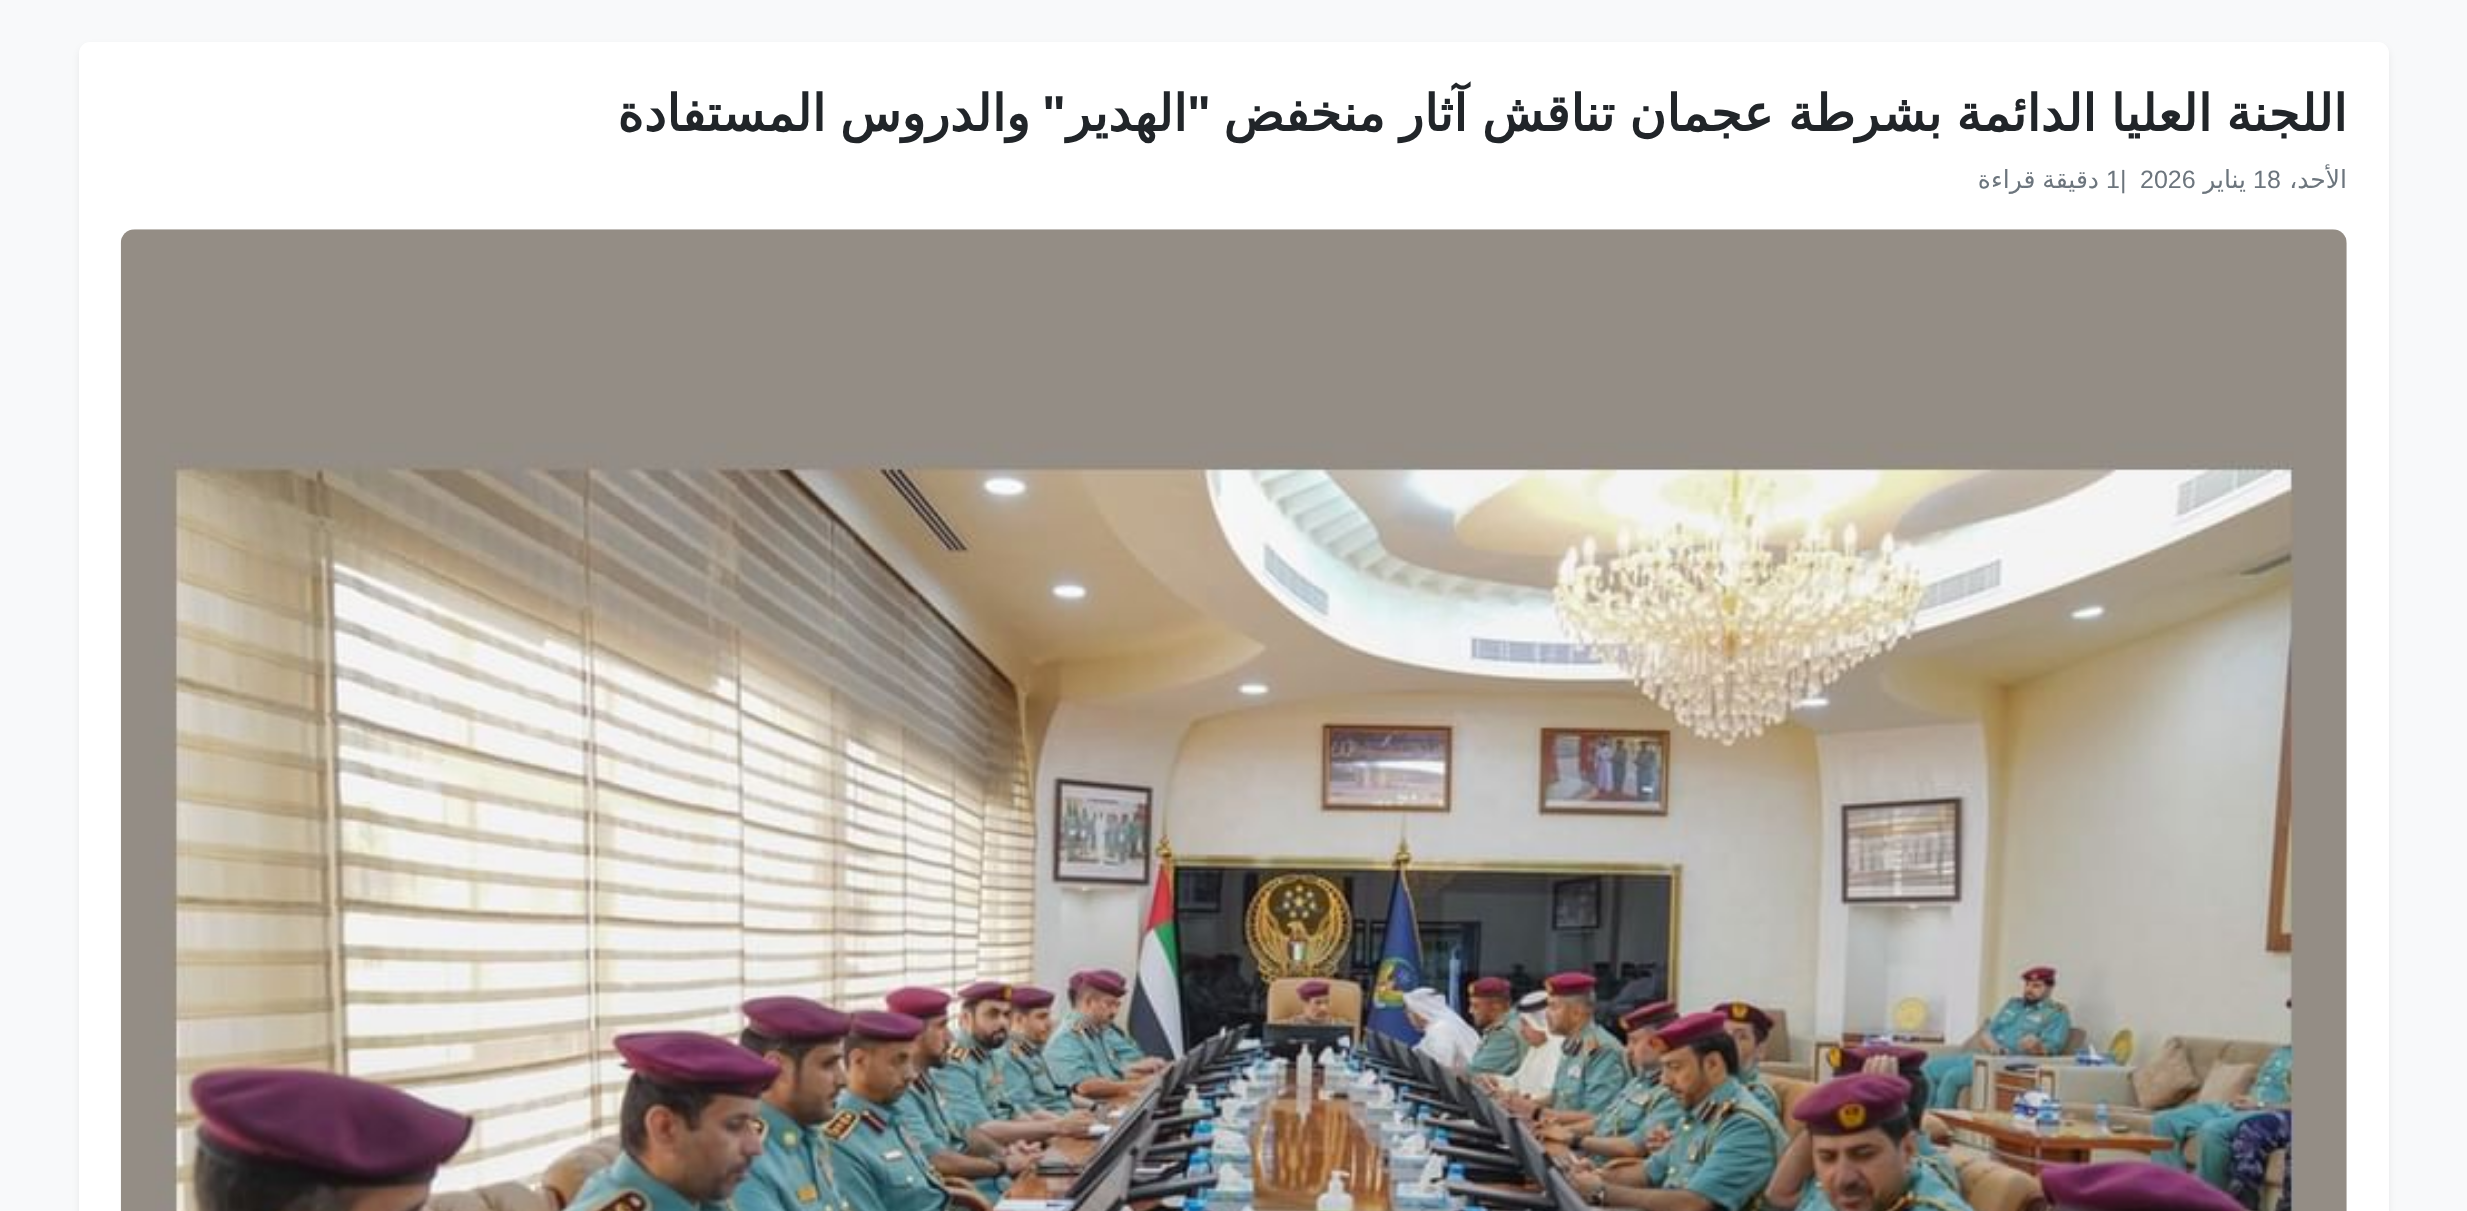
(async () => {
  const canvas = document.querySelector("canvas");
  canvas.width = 2467;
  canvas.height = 1211;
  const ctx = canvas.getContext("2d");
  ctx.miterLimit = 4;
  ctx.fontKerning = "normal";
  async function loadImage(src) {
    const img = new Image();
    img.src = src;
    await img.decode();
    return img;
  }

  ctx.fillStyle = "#f8f9fa";
  ctx.fillRect(0, 0, 2467, 1211);
  ctx.fillStyle = "rgba(0, 0, 0, 0.07)";
  ctx.filter = "blur(3.5px)";
  ctx.beginPath();
  ctx.roundRect(79, 46, 2310, 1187, 11);
  ctx.fill();
  ctx.filter = "none";
  ctx.fillStyle = "#ffffff";
  ctx.beginPath();
  ctx.roundRect(79, 42, 2310, 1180, 11);
  ctx.fill();
  ctx.drawImage(await loadImage("img/1.png"), 120, 229, 2227, 982);
  ctx.wordSpacing = "-1.5px";
  ctx.direction = "rtl";
  ctx.font = "bold 50.4px DejaVu Sans";
  ctx.fillStyle = "#212529";
  ctx.fillText("اللجنة العليا الدائمة بشرطة عجمان تناقش آثار منخفض", 2347, 131);
  ctx.wordSpacing = "0px";
  ctx.font = "bold 50.4px Liberation Sans";
  ctx.fillText("\"", 1211, 131);
  ctx.font = "bold 50.4px DejaVu Sans";
  ctx.fillText("الهدير", 1187, 131);
  ctx.font = "bold 50.4px Liberation Sans";
  ctx.fillText("\"", 1066, 131);
  ctx.wordSpacing = "-2px";
  ctx.font = "bold 50.4px DejaVu Sans";
  ctx.fillText("والدروس المستفادة", 1030, 131);
  ctx.wordSpacing = "0px";
  ctx.font = "25px DejaVu Sans";
  ctx.fillStyle = "#6c757d";
  ctx.fillText("الأحد،", 2347, 188);
  ctx.direction = "ltr";
  ctx.font = "25px Liberation Sans";
  ctx.fillText("18", 2253, 188);
  ctx.direction = "rtl";
  ctx.font = "25px DejaVu Sans";
  ctx.fillText("يناير", 2246, 188);
  ctx.direction = "ltr";
  ctx.font = "25px Liberation Sans";
  for (const [text, x, y] of [
    ["2026", 2140, 188],
    ["|", 2120, 188],
    ["1", 2106, 188],
  ]) {
    ctx.fillText(text, x, y);
  }
  ctx.wordSpacing = "-1px";
  ctx.direction = "rtl";
  ctx.font = "25px DejaVu Sans";
  ctx.fillText("دقيقة قراءة", 2099, 188);
})();
